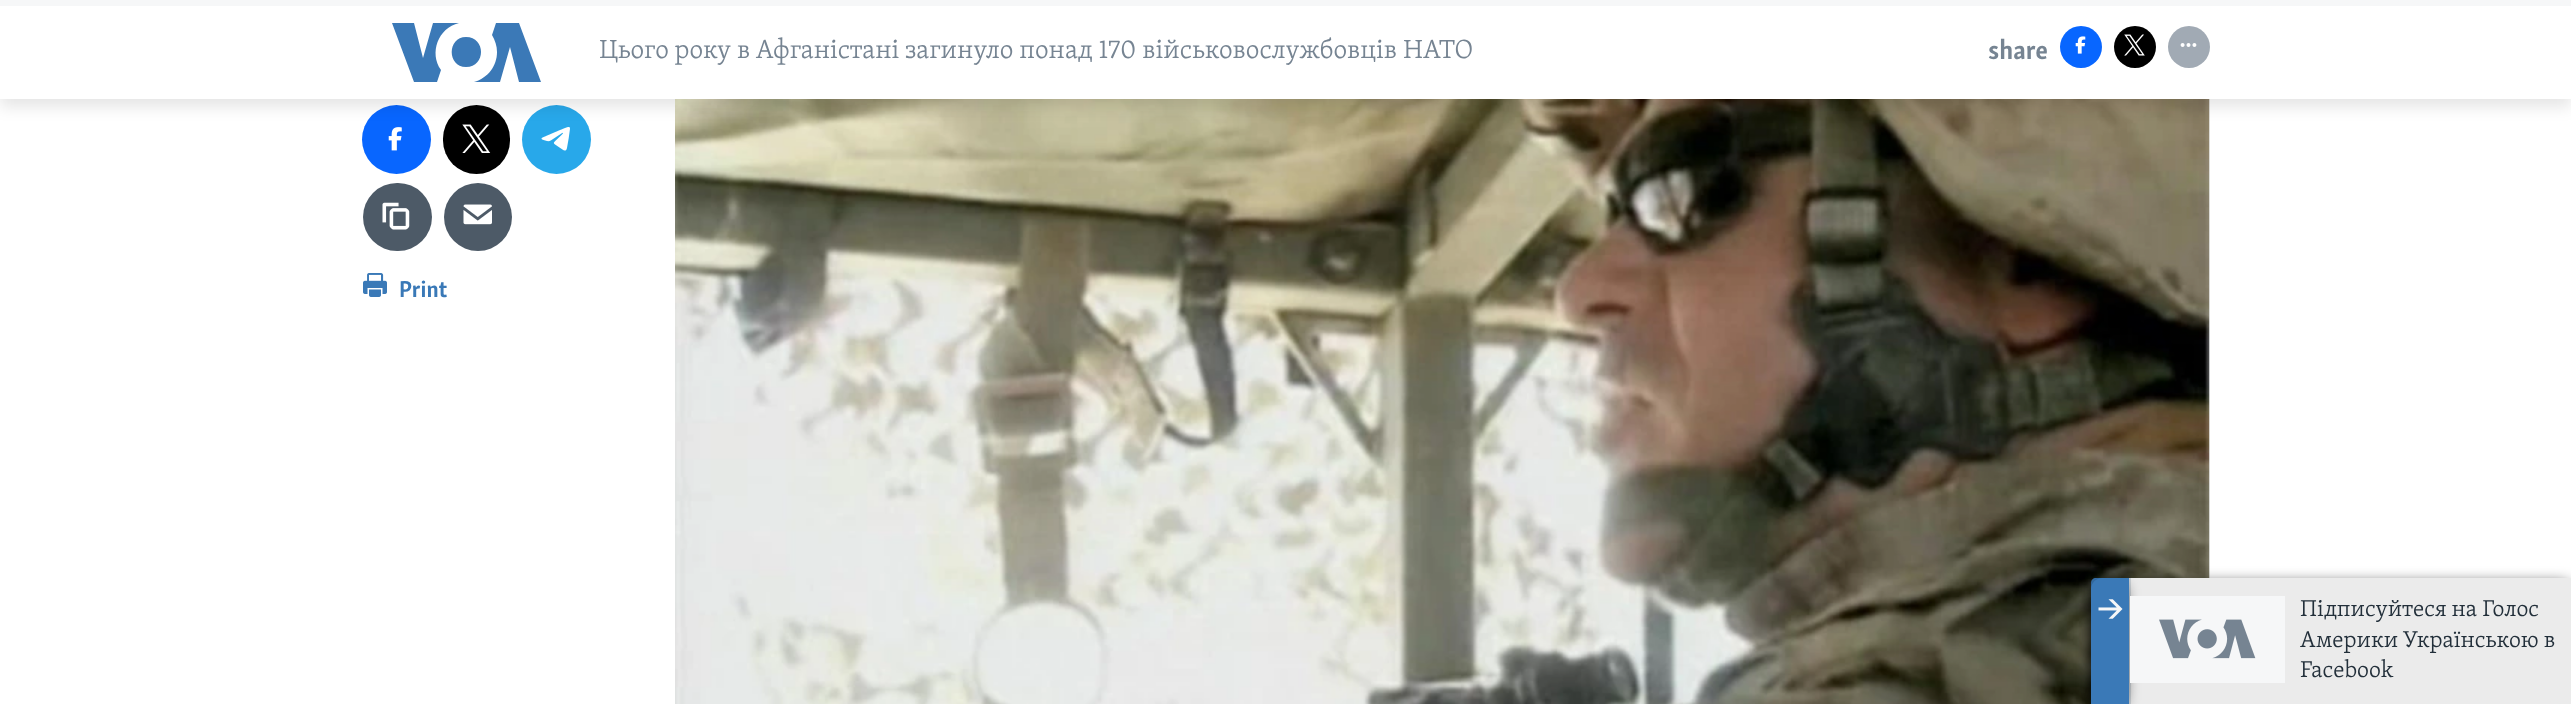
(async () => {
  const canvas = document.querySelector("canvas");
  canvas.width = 2571;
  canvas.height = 704;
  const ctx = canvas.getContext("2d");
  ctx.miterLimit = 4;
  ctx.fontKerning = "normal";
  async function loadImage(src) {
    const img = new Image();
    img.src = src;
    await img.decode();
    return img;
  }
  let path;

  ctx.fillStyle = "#ffffff";
  ctx.fillRect(0, 0, 2571, 704);
  ctx.fillStyle = "#0866ff";
  ctx.beginPath();
  ctx.arc(396.5, 139.5, 34.5, 0, Math.PI * 2);
  ctx.fill();
  ctx.drawImage(await loadImage("img/4.png"), 388, 127, 14, 24);
  ctx.fillStyle = "#000000";
  ctx.beginPath();
  ctx.roundRect(443, 105, 67, 69, 33.5);
  ctx.fill();
  ctx.drawImage(await loadImage("img/5.png"), 462, 124, 29, 29);
  ctx.fillStyle = "#28a8ea";
  ctx.beginPath();
  ctx.arc(556.5, 139.5, 34.5, 0, Math.PI * 2);
  ctx.fill();
  ctx.drawImage(await loadImage("img/6.png"), 541, 127, 29, 24);
  ctx.fillStyle = "#f6f7f8";
  ctx.fillRect(2209, 99, 1, 479);
  ctx.drawImage(await loadImage("img/10.png"), 675, 99, 1535, 605);
  ctx.fillStyle = "rgba(0, 0, 0, 0.1)";
  ctx.filter = "blur(7.5px)";
  ctx.beginPath();
  ctx.rect(0, 8, 2571, 99);
  ctx.fill();
  ctx.filter = "none";
  ctx.fillStyle = "#ffffff";
  ctx.fillRect(0, 6, 2571, 93);
  ctx.fillStyle = "#f6f7f8";
  ctx.fillRect(0, 0, 2571, 6);
  ctx.fillStyle = "#3b79b7";
  path = new Path2D("M441 70L437 82H414L392 23H414L423 58L433 23H459C438 28 429 53 441 70ZM466 37C447 37 447 67 466 67C486 67 486 37 466 37ZM497 52C497 66 488 78 474 82H500L510 47L519 82H541L519 23H496L492 35C495 40 497 46 497 52Z");
  ctx.fill(path);
  ctx.fillStyle = "#0866ff";
  ctx.beginPath();
  ctx.arc(2081, 47, 21, 0, Math.PI * 2);
  ctx.fill();
  ctx.drawImage(await loadImage("img/1.png"), 2075, 36, 11, 18);
  ctx.fillStyle = "#000000";
  ctx.beginPath();
  ctx.arc(2135, 47, 21, 0, Math.PI * 2);
  ctx.fill();
  ctx.drawImage(await loadImage("img/2.png"), 2124, 34, 21, 22);
  ctx.fillStyle = "#a1aab4";
  ctx.beginPath();
  ctx.arc(2189, 47, 21, 0, Math.PI * 2);
  ctx.fill();
  ctx.drawImage(await loadImage("img/3.png"), 2180, 43, 17, 4);
  ctx.fillStyle = "#4d5a67";
  ctx.beginPath();
  ctx.roundRect(363, 183, 69, 68, 34);
  ctx.fill();
  ctx.drawImage(await loadImage("img/7.png"), 382, 202, 28, 28);
  ctx.beginPath();
  ctx.arc(478, 217, 34, 0, Math.PI * 2);
  ctx.fill();
  ctx.drawImage(await loadImage("img/8.png"), 463, 204, 29, 21);
  ctx.drawImage(await loadImage("img/9.png"), 363, 273, 24, 24);
  ctx.fillStyle = "rgba(0, 0, 0, 0.85)";
  ctx.filter = "blur(7.5px)";
  ctx.beginPath();
  ctx.roundRect(2094, 584, 474, 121, 1.5);
  ctx.fill();
  ctx.filter = "none";
  ctx.fillStyle = "#3a79b7";
  path = new Path2D("M2096 578H2571V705H2091V583C2091 580 2093 578 2096 578Z");
  ctx.fill(path);
  ctx.fillStyle = "#ebebeb";
  ctx.fillRect(2131, 578, 440, 126);
  ctx.fillStyle = "#cbd1d6";
  ctx.fillRect(2129, 578, 2, 126);
  ctx.save();
  path = new Path2D("M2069 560H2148V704H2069ZM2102 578H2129V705H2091V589C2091 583 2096 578 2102 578Z");
  ctx.clip(path, "evenodd");
  ctx.fillStyle = "rgba(0, 0, 0, 0.85)";
  ctx.filter = "blur(7.5px)";
  ctx.beginPath();
  ctx.roundRect(2093, 584, 31, 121, 8);
  ctx.fill();
  ctx.filter = "none";
  ctx.restore();
  ctx.drawImage(await loadImage("img/11.png"), 2098, 599, 25, 20);
  ctx.fillStyle = "#f6f7f8";
  ctx.fillRect(2130, 596, 155, 87);
  ctx.drawImage(await loadImage("img/12.png"), 2159, 619, 97, 40);
  ctx.font = "300 27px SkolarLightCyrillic";
  ctx.fillStyle = "#768492";
  ctx.fillText("Цього року в Афганістані загинуло понад 170 військовослужбовців НАТО", 599, 58);
  ctx.font = "bold 27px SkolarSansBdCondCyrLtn";
  ctx.fillText("share", 1988, 59);
  ctx.font = "bold 23.6px SkolarSansBdCondCyrLtn";
  ctx.fillStyle = "#3a79b7";
  ctx.fillText("Print", 399, 297);
  ctx.font = "300 23.6px SkolarLightCyrillic";
  ctx.fillStyle = "#222f3a";
  for (const [text, x, y] of [
    ["Підписуйтеся на Голос", 2300, 616],
    ["Америки Українською в", 2300, 647],
    ["Facebook", 2300, 677],
  ]) {
    ctx.fillText(text, x, y);
  }
})();
